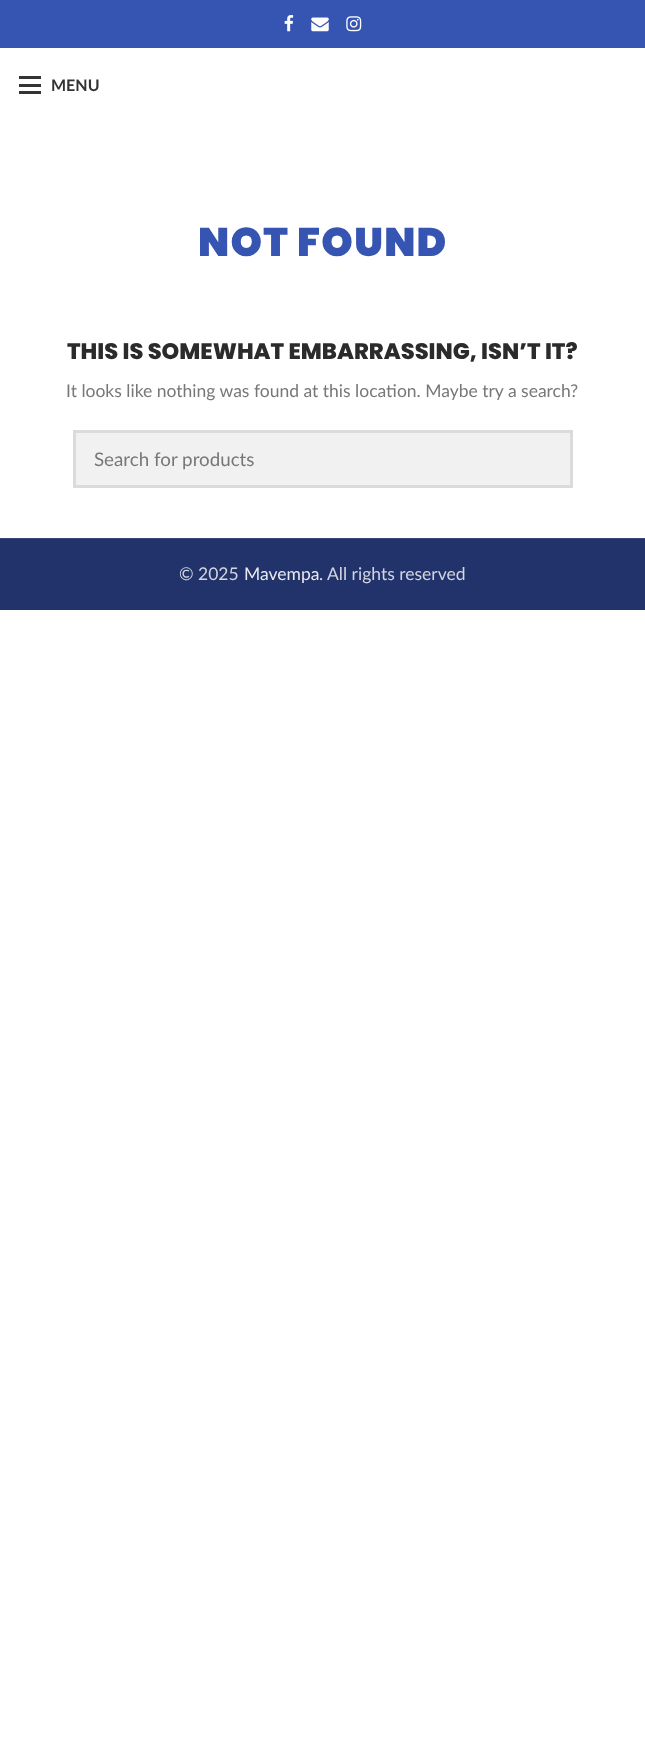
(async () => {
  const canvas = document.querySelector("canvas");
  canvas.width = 645;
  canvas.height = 1744;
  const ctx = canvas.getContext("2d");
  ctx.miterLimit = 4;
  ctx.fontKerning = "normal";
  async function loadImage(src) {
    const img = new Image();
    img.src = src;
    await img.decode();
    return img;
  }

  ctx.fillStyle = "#ffffff";
  ctx.fillRect(0, 0, 645, 1744);
  ctx.fillStyle = "#3654b1";
  ctx.fillRect(0, 0, 645, 48);
  ctx.drawImage(await loadImage("img/1.png"), 284, 15, 10, 17);
  ctx.drawImage(await loadImage("img/2.png"), 311, 17, 18, 15);
  ctx.drawImage(await loadImage("img/3.png"), 346, 16, 16, 16);
  for (const [x, y, w, h, color] of [
    [19, 84, 22, 3, "#333333"],
    [19, 76, 22, 3, "#333333"],
    [19, 91, 22, 3, "#333333"],
  ]) {
    ctx.fillStyle = color;
    ctx.fillRect(x, y, w, h);
  }
  ctx.fillStyle = "#f1f1f1";
  ctx.beginPath();
  ctx.rect(74.5, 431.5, 497, 55);
  ctx.fill();
  ctx.strokeStyle = "#dbdbdb";
  ctx.lineWidth = 3;
  ctx.stroke();
  ctx.fillStyle = "#21336a";
  ctx.fillRect(0, 539, 645, 71);
  ctx.fillStyle = "#374779";
  ctx.fillRect(0, 538, 645, 1);
  ctx.font = "bold 16px Lato";
  ctx.fillStyle = "#333333";
  ctx.fillText("MENU", 51, 91);
  ctx.letterSpacing = "1.25px";
  ctx.font = "900 40px Poppins";
  ctx.fillStyle = "#3654b1";
  ctx.fillText("NOT FOUND", 198, 256);
  ctx.letterSpacing = "0px";
  ctx.font = "800 22.5px Poppins";
  ctx.fillStyle = "#2d2a2a";
  ctx.fillText("THIS IS SOMEWHAT EMBARRASSING, ISN’T IT?", 67, 359);
  ctx.font = "17.5px Lato";
  ctx.fillStyle = "#777777";
  ctx.fillText("It looks like nothing was found at this location. Maybe try a search?", 66, 397);
  ctx.font = "18.75px Lato";
  ctx.fillText("Search for products", 94, 466);
  ctx.font = "17.5px Lato";
  ctx.fillStyle = "#d3d6e1";
  ctx.fillText("© 2025", 179, 580);
  ctx.fillStyle = "#e9ebf0";
  ctx.fillText("Mavempa", 244, 580);
  ctx.fillStyle = "#d3d6e1";
  ctx.fillText(". All rights reserved", 319, 580);
})();
